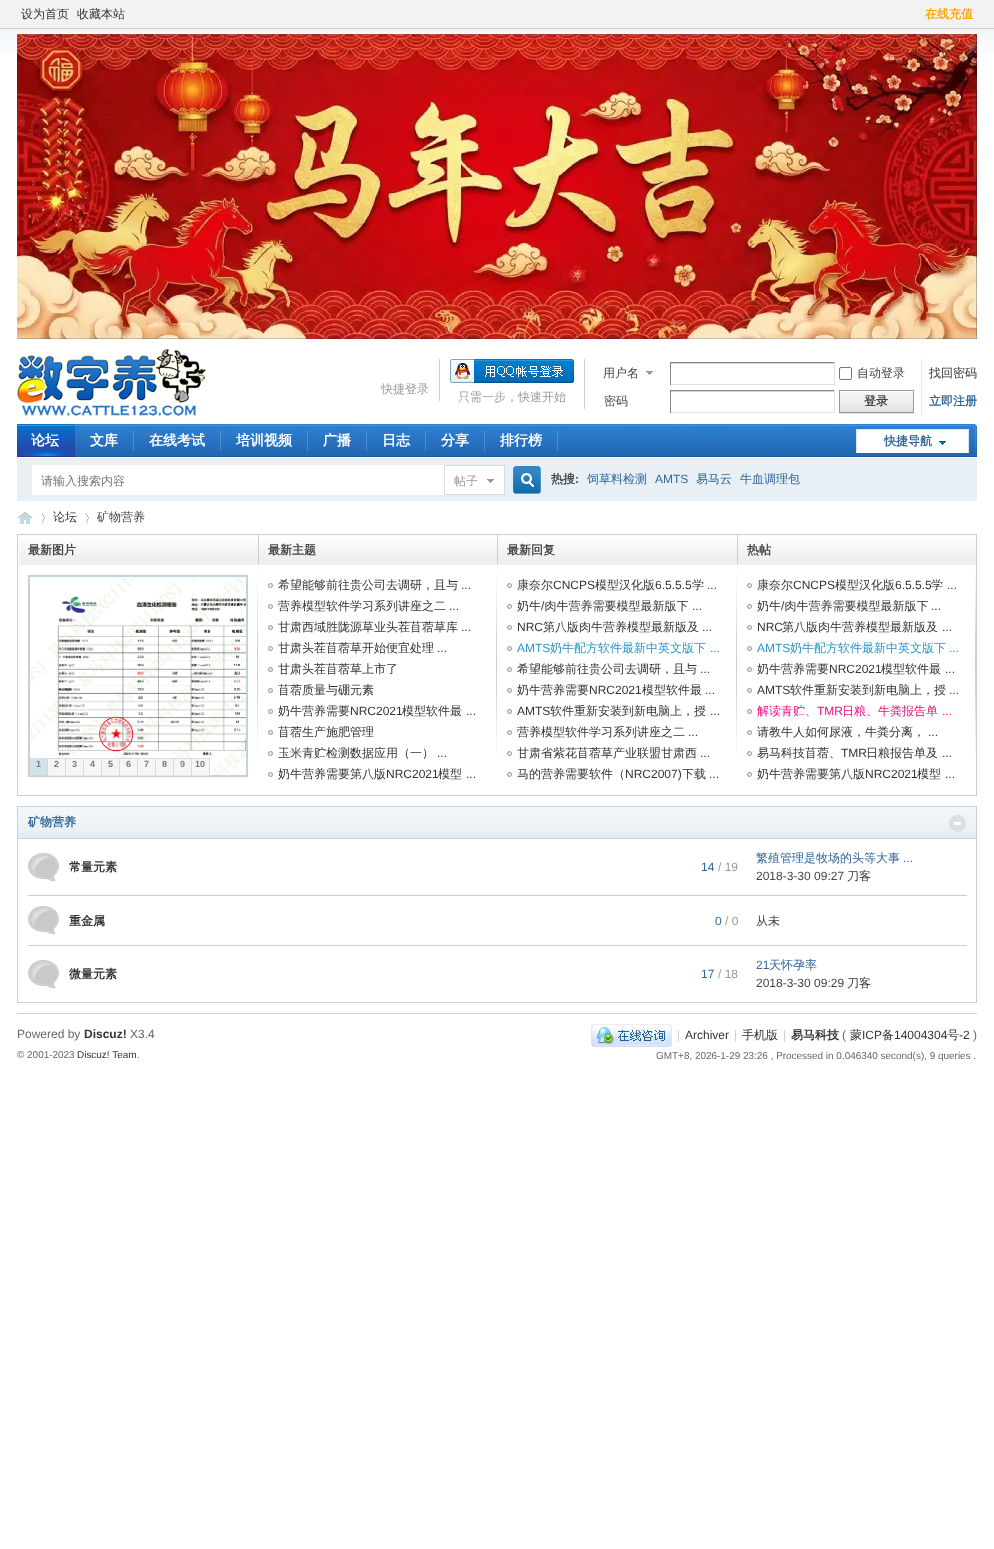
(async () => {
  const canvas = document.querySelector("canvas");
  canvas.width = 994;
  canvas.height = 1549;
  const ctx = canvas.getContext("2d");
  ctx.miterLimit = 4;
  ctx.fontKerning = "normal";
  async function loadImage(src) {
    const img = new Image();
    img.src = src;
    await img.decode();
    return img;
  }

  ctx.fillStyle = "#ffffff";
  ctx.fillRect(0, 0, 994, 1549);
  ctx.drawImage(await loadImage("img/1.png"), 0, 29, 994, 25);
  ctx.fillStyle = "#f2f2f2";
  ctx.fillRect(0, 0, 994, 28);
  ctx.fillStyle = "#cdcdcd";
  ctx.fillRect(0, 28, 994, 1);
  ctx.drawImage(await loadImage("img/2.png"), 17, 34, 960, 305);
  ctx.drawImage(await loadImage("img/3.png"), 17, 349, 189, 67);
  ctx.fillRect(439, 359, 1, 42);
  ctx.drawImage(await loadImage("img/4.png"), 646, 371, 7, 4);
  for (const [x, y, w, h, color] of [
    [670, 363, 165, 1, "#d4d4d4"],
    [670, 362, 165, 1, "#848484"],
    [834, 362, 1, 23, "#e0e0e0"],
    [670, 384, 165, 1, "#e0e0e0"],
    [670, 362, 1, 23, "#848484"],
  ]) {
    ctx.fillStyle = color;
    ctx.fillRect(x, y, w, h);
  }
  ctx.beginPath();
  ctx.roundRect(839.5, 367.5, 12, 12, 1.5);
  ctx.strokeStyle = "#767676";
  ctx.stroke();
  for (const [x, y, w, h, color] of [
    [670, 391, 165, 1, "#d4d4d4"],
    [670, 390, 165, 1, "#848484"],
    [834, 390, 1, 23, "#e0e0e0"],
    [670, 412, 165, 1, "#e0e0e0"],
    [670, 390, 1, 23, "#848484"],
    [921, 359, 1, 57, "#e5edf2"],
    [839, 413, 75, 1, "#e5e5e5"],
  ]) {
    ctx.fillStyle = color;
    ctx.fillRect(x, y, w, h);
  }
  ctx.drawImage(await loadImage("img/5.png"), 840, 391, 73, 21);
  ctx.strokeStyle = "#999999";
  ctx.strokeRect(839.5, 390.5, 74, 22);
  ctx.fillStyle = "#cdcdcd";
  ctx.fillRect(584, 359, 1, 50);
  ctx.drawImage(await loadImage("img/6.png"), 450, 359, 124, 24);
  ctx.drawImage(await loadImage("img/7.png"), 75, 424, 902, 33);
  ctx.drawImage(await loadImage("img/8.png"), 17, 424, 58, 33);
  ctx.drawImage(await loadImage("img/9.png"), 133, 431, 1, 20);
  ctx.drawImage(await loadImage("img/9.png"), 220, 431, 1, 20);
  ctx.drawImage(await loadImage("img/9.png"), 307, 431, 1, 20);
  ctx.drawImage(await loadImage("img/9.png"), 366, 431, 1, 20);
  ctx.drawImage(await loadImage("img/9.png"), 425, 431, 1, 20);
  ctx.drawImage(await loadImage("img/9.png"), 484, 431, 1, 20);
  ctx.drawImage(await loadImage("img/9.png"), 557, 431, 1, 20);
  ctx.drawImage(await loadImage("img/10.png"), 856, 429, 113, 24);
  ctx.fillStyle = "#e8eff5";
  ctx.fillRect(17, 458, 960, 43);
  ctx.fillStyle = "#ffffff";
  ctx.fillRect(32, 465, 412, 30);
  ctx.drawImage(await loadImage("img/11.png"), 513, 466, 28, 28);
  ctx.drawImage(await loadImage("img/12.png"), 444, 465, 61, 30);
  ctx.drawImage(await loadImage("img/13.png"), 17, 512, 16, 12);
  ctx.drawImage(await loadImage("img/14.png"), 42, 513, 3, 10);
  ctx.drawImage(await loadImage("img/14.png"), 86, 513, 3, 10);
  for (const [x, y, w, h, color] of [
    [976, 534, 1, 262, "#cdcdcd"],
    [17, 795, 960, 1, "#cdcdcd"],
    [17, 534, 1, 262, "#cdcdcd"],
    [18, 534, 958, 1, "#cdcdcd"],
  ]) {
    ctx.fillStyle = color;
    ctx.fillRect(x, y, w, h);
  }
  ctx.drawImage(await loadImage("img/15.png"), 257, 572, 1, 185);
  ctx.drawImage(await loadImage("img/16.png"), 19, 540, 239, 25);
  ctx.strokeStyle = "#cccccc";
  ctx.strokeRect(28.5, 575.5, 219, 201);
  ctx.drawImage(await loadImage("img/17.png"), 30, 577, 216, 198);
  ctx.strokeStyle = "#c2d5e3";
  ctx.strokeRect(29.5, 576.5, 217, 199);
  for (const [x, y, w, h, color] of [
    [30, 758, 18, 17, "rgba(194, 213, 227, 0.7)"],
    [47, 758, 1, 18, "rgba(194, 213, 227, 0.7)"],
    [48, 758, 18, 18, "rgba(242, 242, 242, 0.7)"],
    [48, 758, 18, 1, "rgba(194, 213, 227, 0.7)"],
    [65, 758, 1, 18, "rgba(194, 213, 227, 0.7)"],
    [66, 758, 18, 18, "rgba(242, 242, 242, 0.7)"],
    [66, 758, 18, 1, "rgba(194, 213, 227, 0.7)"],
    [83, 758, 1, 18, "rgba(194, 213, 227, 0.7)"],
    [84, 759, 18, 17, "rgba(242, 242, 242, 0.7)"],
    [84, 758, 18, 1, "#d4e2eb"],
    [101, 758, 1, 18, "rgba(194, 213, 227, 0.7)"],
    [102, 758, 18, 18, "rgba(242, 242, 242, 0.7)"],
    [102, 758, 18, 1, "rgba(194, 213, 227, 0.7)"],
    [119, 758, 1, 18, "rgba(194, 213, 227, 0.7)"],
    [120, 758, 18, 18, "rgba(242, 242, 242, 0.7)"],
    [120, 758, 18, 1, "rgba(194, 213, 227, 0.7)"],
    [137, 758, 1, 18, "rgba(194, 213, 227, 0.7)"],
    [138, 759, 18, 17, "rgba(242, 242, 242, 0.7)"],
    [138, 758, 18, 1, "#d4e2eb"],
    [155, 758, 1, 18, "rgba(194, 213, 227, 0.7)"],
    [156, 758, 18, 18, "rgba(242, 242, 242, 0.7)"],
    [156, 758, 18, 1, "rgba(194, 213, 227, 0.7)"],
    [173, 758, 1, 18, "rgba(194, 213, 227, 0.7)"],
    [174, 758, 18, 18, "rgba(242, 242, 242, 0.7)"],
    [174, 758, 18, 1, "rgba(194, 213, 227, 0.7)"],
    [191, 758, 1, 18, "rgba(194, 213, 227, 0.7)"],
    [192, 759, 18, 17, "rgba(242, 242, 242, 0.7)"],
    [192, 758, 18, 1, "#d4e2eb"],
    [209, 758, 1, 18, "rgba(194, 213, 227, 0.7)"],
  ]) {
    ctx.fillStyle = color;
    ctx.fillRect(x, y, w, h);
  }
  ctx.drawImage(await loadImage("img/15.png"), 496, 572, 1, 185);
  ctx.drawImage(await loadImage("img/18.png"), 259, 540, 238, 25);
  ctx.fillStyle = "#cdcdcd";
  ctx.fillRect(258, 535, 1, 30);
  ctx.drawImage(await loadImage("img/19.png"), 268, 583, 5, 5);
  ctx.drawImage(await loadImage("img/19.png"), 268, 604, 5, 5);
  ctx.drawImage(await loadImage("img/19.png"), 268, 625, 5, 5);
  ctx.drawImage(await loadImage("img/19.png"), 268, 646, 5, 5);
  ctx.drawImage(await loadImage("img/19.png"), 268, 667, 5, 5);
  ctx.drawImage(await loadImage("img/19.png"), 268, 688, 5, 5);
  ctx.drawImage(await loadImage("img/19.png"), 268, 709, 5, 5);
  ctx.drawImage(await loadImage("img/19.png"), 268, 730, 5, 5);
  ctx.drawImage(await loadImage("img/19.png"), 268, 751, 5, 5);
  ctx.drawImage(await loadImage("img/19.png"), 268, 772, 5, 5);
  ctx.drawImage(await loadImage("img/15.png"), 736, 572, 1, 185);
  ctx.drawImage(await loadImage("img/16.png"), 498, 540, 239, 25);
  ctx.fillRect(497, 535, 1, 30);
  ctx.drawImage(await loadImage("img/19.png"), 507, 583, 5, 5);
  ctx.drawImage(await loadImage("img/19.png"), 507, 604, 5, 5);
  ctx.drawImage(await loadImage("img/19.png"), 507, 625, 5, 5);
  ctx.drawImage(await loadImage("img/19.png"), 507, 646, 5, 5);
  ctx.drawImage(await loadImage("img/19.png"), 507, 667, 5, 5);
  ctx.drawImage(await loadImage("img/19.png"), 507, 688, 5, 5);
  ctx.drawImage(await loadImage("img/19.png"), 507, 709, 5, 5);
  ctx.drawImage(await loadImage("img/19.png"), 507, 730, 5, 5);
  ctx.drawImage(await loadImage("img/19.png"), 507, 751, 5, 5);
  ctx.drawImage(await loadImage("img/19.png"), 507, 772, 5, 5);
  ctx.drawImage(await loadImage("img/15.png"), 975, 572, 1, 185);
  ctx.drawImage(await loadImage("img/18.png"), 738, 540, 238, 25);
  ctx.fillRect(737, 535, 1, 30);
  ctx.drawImage(await loadImage("img/19.png"), 747, 583, 5, 5);
  ctx.drawImage(await loadImage("img/19.png"), 747, 604, 5, 5);
  ctx.drawImage(await loadImage("img/19.png"), 747, 625, 5, 5);
  ctx.drawImage(await loadImage("img/19.png"), 747, 646, 5, 5);
  ctx.drawImage(await loadImage("img/19.png"), 747, 667, 5, 5);
  ctx.drawImage(await loadImage("img/19.png"), 747, 688, 5, 5);
  ctx.drawImage(await loadImage("img/19.png"), 747, 709, 5, 5);
  ctx.drawImage(await loadImage("img/19.png"), 747, 730, 5, 5);
  ctx.drawImage(await loadImage("img/19.png"), 747, 751, 5, 5);
  ctx.drawImage(await loadImage("img/19.png"), 747, 772, 5, 5);
  for (const [x, y, w, h, color] of [
    [976, 806, 1, 197, "#cdcdcd"],
    [17, 1002, 960, 1, "#cdcdcd"],
    [17, 806, 1, 197, "#cdcdcd"],
    [18, 832, 958, 6, "#e5edf2"],
  ]) {
    ctx.fillStyle = color;
    ctx.fillRect(x, y, w, h);
  }
  ctx.drawImage(await loadImage("img/20.png"), 18, 807, 958, 25);
  ctx.fillStyle = "#c2d5e3";
  ctx.fillRect(18, 806, 958, 1);
  ctx.fillRect(18, 838, 958, 1);
  ctx.drawImage(await loadImage("img/21.png"), 949, 815, 17, 17);
  ctx.drawImage(await loadImage("img/22.png"), 28, 853, 31, 29);
  ctx.drawImage(await loadImage("img/22.png"), 28, 906, 31, 29);
  ctx.fillStyle = "#cdcdcd";
  ctx.fillRect(28, 895, 939, 1);
  ctx.drawImage(await loadImage("img/22.png"), 28, 960, 31, 29);
  ctx.fillRect(28, 945, 939, 1);
  ctx.fillRect(17, 1013, 960, 1);
  ctx.drawImage(await loadImage("img/23.png"), 591, 1024, 81, 23);
  ctx.font = "500 12px WenQuanYi Zen Hei";
  ctx.fillStyle = "#333333";
  ctx.fillText("设为首页", 21, 18);
  ctx.fillText("收藏本站", 77, 18);
  ctx.font = "bold 12px WenQuanYi Zen Hei";
  ctx.fillStyle = "#ffa500";
  ctx.fillText("在线充值", 925, 18);
  ctx.font = "500 12px WenQuanYi Zen Hei";
  ctx.fillStyle = "#999999";
  ctx.fillText("快捷登录", 381, 393);
  ctx.fillStyle = "#444444";
  ctx.fillText("用户名", 603, 377);
  ctx.fillText("自动登录", 857, 377);
  ctx.fillStyle = "#333333";
  ctx.fillText("找回密码", 929, 377);
  ctx.fillStyle = "#444444";
  ctx.fillText("密码", 604, 405);
  ctx.font = "bold 12px WenQuanYi Zen Hei";
  ctx.fillText("登录", 864, 405);
  ctx.fillStyle = "#336699";
  ctx.fillText("立即注册", 929, 405);
  ctx.font = "500 12px WenQuanYi Zen Hei";
  ctx.fillStyle = "#999999";
  ctx.fillText("只需一步，快速开始", 458, 401);
  ctx.font = "bold 14px WenQuanYi Zen Hei";
  ctx.fillStyle = "#ffffff";
  for (const [text, x, y] of [
    ["论坛", 31, 445],
    ["文库", 90, 445],
    ["在线考试", 149, 445],
    ["培训视频", 236, 445],
    ["广播", 323, 445],
    ["日志", 382, 445],
    ["分享", 441, 445],
    ["排行榜", 500, 445],
  ]) {
    ctx.fillText(text, x, y);
  }
  ctx.font = "bold 12px WenQuanYi Zen Hei";
  ctx.fillStyle = "#336699";
  ctx.fillText("快捷导航", 884, 445);
  ctx.fillStyle = "#444444";
  ctx.fillText("热搜", 551, 483);
  ctx.font = "bold 12px Liberation Sans";
  ctx.fillText(":", 575, 483);
  ctx.font = "500 12px WenQuanYi Zen Hei";
  ctx.fillStyle = "#336699";
  ctx.fillText("饲草料检测", 587, 483);
  ctx.font = "12px Liberation Sans";
  ctx.fillText("AMTS", 655, 483);
  ctx.font = "500 12px WenQuanYi Zen Hei";
  ctx.fillText("易马云", 696, 483);
  ctx.fillText("牛血调理包", 740, 483);
  ctx.fillStyle = "#757575";
  ctx.fillText("请输入搜索内容", 41, 485);
  ctx.fillStyle = "#999999";
  ctx.fillText("帖子", 454, 485);
  ctx.fillStyle = "#333333";
  ctx.fillText("论坛", 53, 521);
  ctx.fillStyle = "#444444";
  ctx.fillText("矿物营养", 97, 521);
  ctx.font = "bold 12px WenQuanYi Zen Hei";
  ctx.fillText("最新图片", 28, 554);
  ctx.font = "bold 9px Liberation Sans";
  ctx.fillStyle = "#7c7c7c";
  ctx.fillText("1", 36, 767);
  ctx.fillStyle = "#757575";
  ctx.fillText("2", 54, 767);
  ctx.fillStyle = "#7c7c7c";
  ctx.fillText("3", 72, 767);
  ctx.fillText("4", 90, 767);
  ctx.fillStyle = "#757575";
  ctx.fillText("5", 108, 767);
  ctx.fillStyle = "#7c7c7c";
  ctx.fillText("6", 126, 767);
  ctx.fillText("7", 144, 767);
  ctx.fillStyle = "#757575";
  ctx.fillText("8", 162, 767);
  ctx.fillStyle = "#7c7c7c";
  ctx.fillText("9", 180, 767);
  ctx.fillText("10", 195, 767);
  ctx.font = "bold 12px WenQuanYi Zen Hei";
  ctx.fillStyle = "#444444";
  ctx.fillText("最新主题", 268, 554);
  ctx.font = "500 12px WenQuanYi Zen Hei";
  ctx.fillStyle = "#333333";
  ctx.fillText("希望能够前往贵公司去调研，且与", 278, 589);
  ctx.font = "12px Liberation Sans";
  ctx.fillText("...", 461, 589);
  ctx.font = "500 12px WenQuanYi Zen Hei";
  ctx.fillText("营养模型软件学习系列讲座之二", 278, 610);
  ctx.font = "12px Liberation Sans";
  ctx.fillText("...", 449, 610);
  ctx.font = "500 12px WenQuanYi Zen Hei";
  ctx.fillText("甘肃西域胜陇源草业头茬苜蓿草库", 278, 631);
  ctx.font = "12px Liberation Sans";
  ctx.fillText("...", 461, 631);
  ctx.font = "500 12px WenQuanYi Zen Hei";
  ctx.fillText("甘肃头茬苜蓿草开始便宜处理", 278, 652);
  ctx.font = "12px Liberation Sans";
  ctx.fillText("...", 437, 652);
  ctx.font = "500 12px WenQuanYi Zen Hei";
  for (const [text, x, y] of [
    ["甘肃头茬苜蓿草上市了", 278, 673],
    ["苜蓿质量与硼元素", 278, 694],
    ["奶牛营养需要", 278, 715],
  ]) {
    ctx.fillText(text, x, y);
  }
  ctx.font = "12px Liberation Sans";
  ctx.fillText("NRC2021", 350, 715);
  ctx.font = "500 12px WenQuanYi Zen Hei";
  ctx.fillText("模型软件最", 402, 715);
  ctx.font = "12px Liberation Sans";
  ctx.fillText("...", 466, 715);
  ctx.font = "500 12px WenQuanYi Zen Hei";
  ctx.fillText("苜蓿生产施肥管理", 278, 736);
  ctx.fillText("玉米青贮检测数据应用（一）", 278, 757);
  ctx.font = "12px Liberation Sans";
  ctx.fillText("...", 437, 757);
  ctx.font = "500 12px WenQuanYi Zen Hei";
  ctx.fillText("奶牛营养需要第八版", 278, 778);
  ctx.font = "12px Liberation Sans";
  ctx.fillText("NRC2021", 386, 778);
  ctx.font = "500 12px WenQuanYi Zen Hei";
  ctx.fillText("模型", 438, 778);
  ctx.font = "12px Liberation Sans";
  ctx.fillText("...", 466, 778);
  ctx.font = "bold 12px WenQuanYi Zen Hei";
  ctx.fillStyle = "#444444";
  ctx.fillText("最新回复", 507, 554);
  ctx.font = "500 12px WenQuanYi Zen Hei";
  ctx.fillStyle = "#333333";
  ctx.fillText("康奈尔", 517, 589);
  ctx.font = "12px Liberation Sans";
  ctx.fillText("CNCPS", 553, 589);
  ctx.font = "500 12px WenQuanYi Zen Hei";
  ctx.fillText("模型汉化版", 595, 589);
  ctx.font = "12px Liberation Sans";
  ctx.fillText("6.5.5.5", 655, 589);
  ctx.font = "500 12px WenQuanYi Zen Hei";
  ctx.fillText("学", 692, 589);
  ctx.font = "12px Liberation Sans";
  ctx.fillText("...", 707, 589);
  ctx.font = "500 12px WenQuanYi Zen Hei";
  ctx.fillText("奶牛 肉牛营养需要模型最新版下", 517, 610);
  ctx.font = "12px Liberation Sans";
  for (const [text, x, y] of [
    ["/", 541, 610],
    ["...", 692, 610],
    ["NRC", 517, 631],
  ]) {
    ctx.fillText(text, x, y);
  }
  ctx.font = "500 12px WenQuanYi Zen Hei";
  ctx.fillText("第八版肉牛营养模型最新版及", 543, 631);
  ctx.font = "12px Liberation Sans";
  ctx.fillText("...", 702, 631);
  ctx.fillStyle = "#2897c5";
  ctx.fillText("AMTS", 517, 652);
  ctx.font = "500 12px WenQuanYi Zen Hei";
  ctx.fillText("奶牛配方软件最新中英文版下", 550, 652);
  ctx.font = "12px Liberation Sans";
  ctx.fillText("...", 710, 652);
  ctx.font = "500 12px WenQuanYi Zen Hei";
  ctx.fillStyle = "#333333";
  ctx.fillText("希望能够前往贵公司去调研，且与", 517, 673);
  ctx.font = "12px Liberation Sans";
  ctx.fillText("...", 700, 673);
  ctx.font = "500 12px WenQuanYi Zen Hei";
  ctx.fillText("奶牛营养需要", 517, 694);
  ctx.font = "12px Liberation Sans";
  ctx.fillText("NRC2021", 589, 694);
  ctx.font = "500 12px WenQuanYi Zen Hei";
  ctx.fillText("模型软件最", 642, 694);
  ctx.font = "12px Liberation Sans";
  ctx.fillText("...", 705, 694);
  ctx.fillText("AMTS", 517, 715);
  ctx.font = "500 12px WenQuanYi Zen Hei";
  ctx.fillText("软件重新安装到新电脑上，授", 550, 715);
  ctx.font = "12px Liberation Sans";
  ctx.fillText("...", 710, 715);
  ctx.font = "500 12px WenQuanYi Zen Hei";
  ctx.fillText("营养模型软件学习系列讲座之二", 517, 736);
  ctx.font = "12px Liberation Sans";
  ctx.fillText("...", 688, 736);
  ctx.font = "500 12px WenQuanYi Zen Hei";
  ctx.fillText("甘肃省紫花苜蓿草产业联盟甘肃西", 517, 757);
  ctx.font = "12px Liberation Sans";
  ctx.fillText("...", 700, 757);
  ctx.font = "500 12px WenQuanYi Zen Hei";
  ctx.fillText("马的营养需要软件（", 517, 778);
  ctx.font = "12px Liberation Sans";
  ctx.fillText("NRC2007)", 625, 778);
  ctx.font = "500 12px WenQuanYi Zen Hei";
  ctx.fillText("下载", 682, 778);
  ctx.font = "12px Liberation Sans";
  ctx.fillText("...", 709, 778);
  ctx.font = "bold 12px WenQuanYi Zen Hei";
  ctx.fillStyle = "#444444";
  ctx.fillText("热帖", 747, 554);
  ctx.font = "500 12px WenQuanYi Zen Hei";
  ctx.fillStyle = "#333333";
  ctx.fillText("康奈尔", 757, 589);
  ctx.font = "12px Liberation Sans";
  ctx.fillText("CNCPS", 793, 589);
  ctx.font = "500 12px WenQuanYi Zen Hei";
  ctx.fillText("模型汉化版", 835, 589);
  ctx.font = "12px Liberation Sans";
  ctx.fillText("6.5.5.5", 895, 589);
  ctx.font = "500 12px WenQuanYi Zen Hei";
  ctx.fillText("学", 931, 589);
  ctx.font = "12px Liberation Sans";
  ctx.fillText("...", 947, 589);
  ctx.font = "500 12px WenQuanYi Zen Hei";
  ctx.fillText("奶牛 肉牛营养需要模型最新版下", 757, 610);
  ctx.font = "12px Liberation Sans";
  for (const [text, x, y] of [
    ["/", 781, 610],
    ["...", 931, 610],
    ["NRC", 757, 631],
  ]) {
    ctx.fillText(text, x, y);
  }
  ctx.font = "500 12px WenQuanYi Zen Hei";
  ctx.fillText("第八版肉牛营养模型最新版及", 782, 631);
  ctx.font = "12px Liberation Sans";
  ctx.fillText("...", 942, 631);
  ctx.fillStyle = "#2897c5";
  ctx.fillText("AMTS", 757, 652);
  ctx.font = "500 12px WenQuanYi Zen Hei";
  ctx.fillText("奶牛配方软件最新中英文版下", 790, 652);
  ctx.font = "12px Liberation Sans";
  ctx.fillText("...", 949, 652);
  ctx.font = "500 12px WenQuanYi Zen Hei";
  ctx.fillStyle = "#333333";
  ctx.fillText("奶牛营养需要", 757, 673);
  ctx.font = "12px Liberation Sans";
  ctx.fillText("NRC2021", 829, 673);
  ctx.font = "500 12px WenQuanYi Zen Hei";
  ctx.fillText("模型软件最", 881, 673);
  ctx.font = "12px Liberation Sans";
  ctx.fillText("...", 945, 673);
  ctx.fillText("AMTS", 757, 694);
  ctx.font = "500 12px WenQuanYi Zen Hei";
  ctx.fillText("软件重新安装到新电脑上，授", 790, 694);
  ctx.font = "12px Liberation Sans";
  ctx.fillText("...", 949, 694);
  ctx.font = "500 12px WenQuanYi Zen Hei";
  ctx.fillStyle = "#ec1282";
  ctx.fillText("解读青贮、", 757, 715);
  ctx.font = "12px Liberation Sans";
  ctx.fillText("TMR", 817, 715);
  ctx.font = "500 12px WenQuanYi Zen Hei";
  ctx.fillText("日粮、牛粪报告单", 842, 715);
  ctx.font = "12px Liberation Sans";
  ctx.fillText("...", 942, 715);
  ctx.font = "500 12px WenQuanYi Zen Hei";
  ctx.fillStyle = "#333333";
  ctx.fillText("请教牛人如何尿液，牛粪分离，", 757, 736);
  ctx.font = "12px Liberation Sans";
  ctx.fillText("...", 928, 736);
  ctx.font = "500 12px WenQuanYi Zen Hei";
  ctx.fillText("易马科技苜蓿、", 757, 757);
  ctx.font = "12px Liberation Sans";
  ctx.fillText("TMR", 841, 757);
  ctx.font = "500 12px WenQuanYi Zen Hei";
  ctx.fillText("日粮报告单及", 866, 757);
  ctx.font = "12px Liberation Sans";
  ctx.fillText("...", 942, 757);
  ctx.font = "500 12px WenQuanYi Zen Hei";
  ctx.fillText("奶牛营养需要第八版", 757, 778);
  ctx.font = "12px Liberation Sans";
  ctx.fillText("NRC2021", 865, 778);
  ctx.font = "500 12px WenQuanYi Zen Hei";
  ctx.fillText("模型", 917, 778);
  ctx.font = "12px Liberation Sans";
  ctx.fillText("...", 945, 778);
  ctx.font = "bold 12px WenQuanYi Zen Hei";
  ctx.fillStyle = "#336699";
  ctx.fillText("矿物营养", 28, 826);
  ctx.fillStyle = "#333333";
  ctx.fillText("常量元素", 69, 871);
  ctx.font = "12px Liberation Sans";
  ctx.fillStyle = "#336699";
  ctx.fillText("14", 701, 871);
  ctx.fillStyle = "#999999";
  ctx.fillText("/ 19", 718, 871);
  ctx.font = "500 12px WenQuanYi Zen Hei";
  ctx.fillStyle = "#336699";
  ctx.fillText("繁殖管理是牧场的头等大事", 756, 862);
  ctx.font = "12px Liberation Sans";
  ctx.fillText("...", 903, 862);
  ctx.fillStyle = "#444444";
  ctx.fillText("2018-3-30 09:27", 756, 880);
  ctx.font = "500 12px WenQuanYi Zen Hei";
  ctx.fillStyle = "#333333";
  ctx.fillText("刀客", 847, 880);
  ctx.font = "bold 12px WenQuanYi Zen Hei";
  ctx.fillText("重金属", 69, 925);
  ctx.font = "12px Liberation Sans";
  ctx.fillStyle = "#336699";
  ctx.fillText("0", 715, 925);
  ctx.fillStyle = "#999999";
  ctx.fillText("/ 0", 725, 925);
  ctx.font = "500 12px WenQuanYi Zen Hei";
  ctx.fillStyle = "#444444";
  ctx.fillText("从未", 756, 925);
  ctx.font = "bold 12px WenQuanYi Zen Hei";
  ctx.fillStyle = "#333333";
  ctx.fillText("微量元素", 69, 978);
  ctx.font = "12px Liberation Sans";
  ctx.fillStyle = "#336699";
  ctx.fillText("17", 701, 978);
  ctx.fillStyle = "#999999";
  ctx.fillText("/ 18", 718, 978);
  ctx.fillStyle = "#336699";
  ctx.fillText("21", 756, 969);
  ctx.font = "500 12px WenQuanYi Zen Hei";
  ctx.fillText("天怀孕率", 769, 969);
  ctx.font = "12px Liberation Sans";
  ctx.fillStyle = "#444444";
  ctx.fillText("2018-3-30 09:29", 756, 987);
  ctx.font = "500 12px WenQuanYi Zen Hei";
  ctx.fillStyle = "#333333";
  ctx.fillText("刀客", 847, 987);
  ctx.font = "12px Liberation Sans";
  ctx.fillStyle = "#666666";
  ctx.fillText("Powered by", 17, 1038);
  ctx.font = "bold 12px Liberation Sans";
  ctx.fillStyle = "#333333";
  ctx.fillText("Discuz!", 84, 1038);
  ctx.font = "12px Liberation Sans";
  ctx.fillStyle = "#666666";
  ctx.fillText("X3.4", 130, 1038);
  ctx.font = "9.95px Liberation Sans";
  ctx.fillText("© 2001-2023", 17, 1058);
  ctx.fillStyle = "#333333";
  ctx.fillText("Discuz! Team", 77, 1058);
  ctx.fillStyle = "#666666";
  ctx.fillText(".", 137, 1058);
  ctx.font = "12px Liberation Sans";
  ctx.fillStyle = "#cccccc";
  ctx.fillText("|", 677, 1039);
  ctx.fillStyle = "#333333";
  ctx.fillText("Archiver", 685, 1039);
  ctx.fillStyle = "#cccccc";
  ctx.fillText("|", 734, 1039);
  ctx.font = "500 12px WenQuanYi Zen Hei";
  ctx.fillStyle = "#333333";
  ctx.fillText("手机版", 742, 1039);
  ctx.font = "12px Liberation Sans";
  ctx.fillStyle = "#cccccc";
  ctx.fillText("|", 783, 1039);
  ctx.font = "bold 12px WenQuanYi Zen Hei";
  ctx.fillStyle = "#333333";
  ctx.fillText("易马科技", 791, 1039);
  ctx.font = "12px Liberation Sans";
  ctx.fillStyle = "#666666";
  ctx.fillText("(", 842, 1039);
  ctx.font = "500 12px WenQuanYi Zen Hei";
  ctx.fillStyle = "#333333";
  ctx.fillText("蒙", 850, 1039);
  ctx.font = "12px Liberation Sans";
  ctx.fillText("ICP", 862, 1039);
  ctx.font = "500 12px WenQuanYi Zen Hei";
  ctx.fillText("备", 882, 1039);
  ctx.font = "12px Liberation Sans";
  ctx.fillText("14004304", 894, 1039);
  ctx.font = "500 12px WenQuanYi Zen Hei";
  ctx.fillText("号", 947, 1039);
  ctx.font = "12px Liberation Sans";
  ctx.fillText("-2", 959, 1039);
  ctx.fillStyle = "#666666";
  ctx.fillText(")", 973, 1039);
  ctx.font = "9.95px Liberation Sans";
  ctx.fillText("GMT+8, 2026-1-29 23:26 , Processed in 0.046340 second(s), 9 queries .", 656, 1059);
})();
